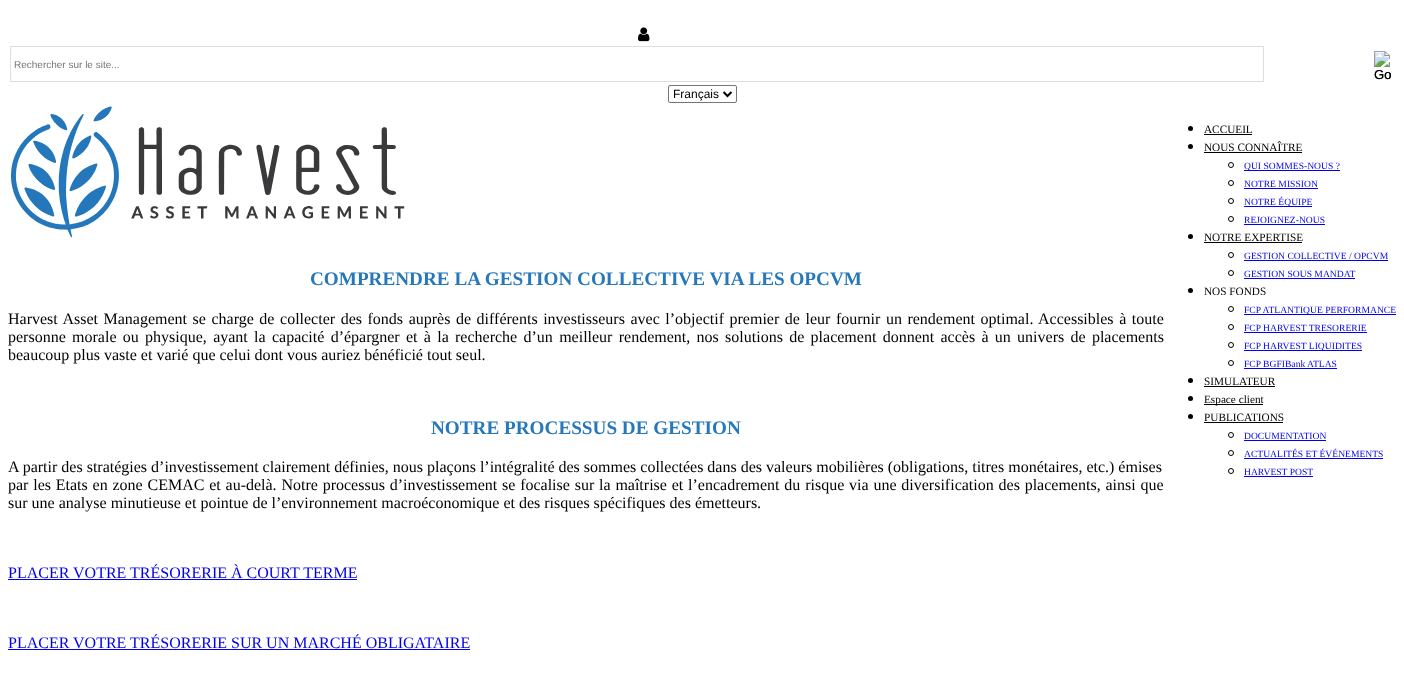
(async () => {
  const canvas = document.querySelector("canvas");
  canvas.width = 1404;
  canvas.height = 693;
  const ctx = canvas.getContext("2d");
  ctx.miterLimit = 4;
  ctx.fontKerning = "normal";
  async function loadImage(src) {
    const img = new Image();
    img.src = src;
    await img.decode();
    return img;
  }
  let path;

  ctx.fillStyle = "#ffffff";
  ctx.fillRect(0, 0, 1404, 693);
  ctx.drawImage(await loadImage("img/1.png"), 638, 27, 12, 15);
  ctx.strokeStyle = "#dededc";
  ctx.strokeRect(10.5, 46.5, 1253, 35);
  ctx.drawImage(await loadImage("img/2.png"), 1374, 51, 18, 28);
  ctx.beginPath();
  ctx.roundRect(668.5, 85.5, 68, 17, 1.5);
  ctx.strokeStyle = "#767676";
  ctx.stroke();
  path = new Path2D("M723.5 92L727.5 96L731.5 92");
  ctx.strokeStyle = "#000000";
  ctx.lineWidth = 2;
  ctx.stroke(path);
  ctx.fillStyle = "#0000ee";
  ctx.fillRect(8, 579, 349, 1);
  ctx.fillRect(8, 649, 462, 1);
  ctx.drawImage(await loadImage("img/3.png"), 10, 106, 395, 132);
  ctx.fillStyle = "#000000";
  ctx.beginPath();
  ctx.arc(1190.5, 128.5, 2.5, 0, Math.PI * 2);
  ctx.fill();
  ctx.fillRect(1204, 134, 48, 1);
  ctx.beginPath();
  ctx.arc(1190.5, 146.5, 2.5, 0, Math.PI * 2);
  ctx.fill();
  ctx.fillRect(1204, 152, 98, 1);
  ctx.beginPath();
  ctx.arc(1231, 165, 2.5, 0, Math.PI * 2);
  ctx.lineWidth = 1;
  ctx.stroke();
  ctx.fillStyle = "#0000ee";
  ctx.fillRect(1244, 170, 96, 1);
  ctx.beginPath();
  ctx.arc(1231, 183, 2.5, 0, Math.PI * 2);
  ctx.stroke();
  ctx.fillRect(1244, 188, 74, 1);
  ctx.beginPath();
  ctx.arc(1231, 201, 2.5, 0, Math.PI * 2);
  ctx.stroke();
  ctx.fillRect(1244, 206, 68, 1);
  ctx.beginPath();
  ctx.arc(1231, 219, 2.5, 0, Math.PI * 2);
  ctx.stroke();
  ctx.fillRect(1244, 224, 81, 1);
  ctx.fillStyle = "#000000";
  ctx.beginPath();
  ctx.arc(1190.5, 236.5, 2.5, 0, Math.PI * 2);
  ctx.fill();
  ctx.fillRect(1204, 242, 98, 1);
  ctx.beginPath();
  ctx.arc(1231, 255, 2.5, 0, Math.PI * 2);
  ctx.stroke();
  ctx.fillStyle = "#0000ee";
  ctx.fillRect(1244, 260, 144, 1);
  ctx.beginPath();
  ctx.arc(1231, 273, 2.5, 0, Math.PI * 2);
  ctx.stroke();
  ctx.fillRect(1244, 278, 111, 1);
  ctx.fillStyle = "#000000";
  ctx.beginPath();
  ctx.arc(1190.5, 290.5, 2.5, 0, Math.PI * 2);
  ctx.fill();
  ctx.beginPath();
  ctx.arc(1231, 309, 2.5, 0, Math.PI * 2);
  ctx.stroke();
  ctx.fillStyle = "#0000ee";
  ctx.fillRect(1244, 314, 152, 1);
  ctx.beginPath();
  ctx.arc(1231, 327, 2.5, 0, Math.PI * 2);
  ctx.stroke();
  ctx.fillRect(1244, 332, 123, 1);
  ctx.beginPath();
  ctx.arc(1231, 345, 2.5, 0, Math.PI * 2);
  ctx.stroke();
  ctx.fillRect(1244, 350, 118, 1);
  ctx.beginPath();
  ctx.arc(1231, 363, 2.5, 0, Math.PI * 2);
  ctx.stroke();
  ctx.fillRect(1244, 368, 93, 1);
  ctx.fillStyle = "#000000";
  ctx.beginPath();
  ctx.arc(1190.5, 380.5, 2.5, 0, Math.PI * 2);
  ctx.fill();
  ctx.fillRect(1204, 386, 71, 1);
  ctx.beginPath();
  ctx.arc(1190.5, 398.5, 2.5, 0, Math.PI * 2);
  ctx.fill();
  ctx.fillRect(1204, 404, 59, 1);
  ctx.beginPath();
  ctx.arc(1190.5, 416.5, 2.5, 0, Math.PI * 2);
  ctx.fill();
  ctx.fillRect(1204, 422, 79, 1);
  ctx.beginPath();
  ctx.arc(1231, 435, 2.5, 0, Math.PI * 2);
  ctx.stroke();
  ctx.fillStyle = "#0000ee";
  ctx.fillRect(1244, 440, 82, 1);
  ctx.beginPath();
  ctx.arc(1231, 453, 2.5, 0, Math.PI * 2);
  ctx.stroke();
  ctx.fillRect(1244, 458, 139, 1);
  ctx.beginPath();
  ctx.arc(1231, 471, 2.5, 0, Math.PI * 2);
  ctx.stroke();
  ctx.fillRect(1244, 476, 69, 1);
  ctx.font = "10px Liberation Sans";
  ctx.fillStyle = "#757575";
  ctx.fillText("Rechercher sur le site...", 14, 68);
  ctx.font = "13px Liberation Sans";
  ctx.fillStyle = "#000000";
  ctx.fillText("Go", 1374, 79);
  ctx.font = "12px Liberation Sans";
  ctx.fillText("Français", 673, 98);
  ctx.font = "bold 19.2px Liberation Serif";
  ctx.fillStyle = "#2678ba";
  ctx.fillText("COMPRENDRE LA GESTION COLLECTIVE VIA LES OPCVM", 310, 285);
  ctx.wordSpacing = "1.55px";
  ctx.font = "16px Liberation Serif";
  ctx.fillStyle = "#000000";
  ctx.fillText("Harvest Asset Management se charge de collecter des fonds auprès de différents investisseurs avec l’objectif premier de leur fournir un rendement optimal. Accessibles à toute", 8, 324);
  ctx.wordSpacing = "2.3px";
  ctx.fillText("personne morale ou physique, ayant la capacité d’épargner et à la recherche d’un meilleur rendement, nos solutions de placement donnent accès à un univers de placements", 8, 342);
  ctx.wordSpacing = "0px";
  ctx.fillText("beaucoup plus vaste et varié que celui dont vous auriez bénéficié tout seul.", 8, 360);
  ctx.font = "bold 19.2px Liberation Serif";
  ctx.fillStyle = "#2678ba";
  ctx.fillText("NOTRE PROCESSUS DE GESTION", 431, 434);
  ctx.font = "16px Liberation Serif";
  ctx.fillStyle = "#000000";
  ctx.fillText("A partir des stratégies d’investissement clairement définies, nous plaçons l’intégralité des sommes collectées dans des valeurs mobilières (obligations, titres monétaires, etc.) émises", 8, 472);
  ctx.wordSpacing = "0.8px";
  ctx.fillText("par les Etats en zone CEMAC et au-delà. Notre processus d’investissement se focalise sur la maîtrise et l’encadrement du risque via une diversification des placements, ainsi que", 8, 490);
  ctx.wordSpacing = "0px";
  ctx.fillText("sur une analyse minutieuse et pointue de l’environnement macroéconomique et des risques spécifiques des émetteurs.", 8, 508);
  ctx.fillStyle = "#0000ee";
  ctx.fillText("PLACER VOTRE TRÉSORERIE À COURT TERME", 8, 578);
  ctx.fillText("PLACER VOTRE TRÉSORERIE SUR UN MARCHÉ OBLIGATAIRE", 8, 648);
  ctx.font = "11.25px Liberation Serif";
  ctx.fillStyle = "#000000";
  ctx.fillText("ACCUEIL", 1204, 133);
  ctx.fillText("NOUS CONNAÎTRE", 1204, 151);
  ctx.font = "9.6px Liberation Serif";
  ctx.fillStyle = "#0000ee";
  for (const [text, x, y] of [
    ["QUI SOMMES-NOUS ?", 1244, 169],
    ["NOTRE MISSION", 1244, 187],
    ["NOTRE ÉQUIPE", 1244, 205],
    ["REJOIGNEZ-NOUS", 1244, 223],
  ]) {
    ctx.fillText(text, x, y);
  }
  ctx.font = "11.25px Liberation Serif";
  ctx.fillStyle = "#000000";
  ctx.fillText("NOTRE EXPERTISE", 1204, 241);
  ctx.font = "9.6px Liberation Serif";
  ctx.fillStyle = "#0000ee";
  ctx.fillText("GESTION COLLECTIVE / OPCVM", 1244, 259);
  ctx.fillText("GESTION SOUS MANDAT", 1244, 277);
  ctx.font = "11.25px Liberation Serif";
  ctx.fillStyle = "#000000";
  ctx.fillText("NOS FONDS", 1204, 295);
  ctx.font = "9.6px Liberation Serif";
  ctx.fillStyle = "#0000ee";
  for (const [text, x, y] of [
    ["FCP ATLANTIQUE PERFORMANCE", 1244, 313],
    ["FCP HARVEST TRESORERIE", 1244, 331],
    ["FCP HARVEST LIQUIDITES", 1244, 349],
    ["FCP BGFIBank ATLAS", 1244, 367],
  ]) {
    ctx.fillText(text, x, y);
  }
  ctx.font = "11.25px Liberation Serif";
  ctx.fillStyle = "#000000";
  for (const [text, x, y] of [
    ["SIMULATEUR", 1204, 385],
    ["Espace client", 1204, 403],
    ["PUBLICATIONS", 1204, 421],
  ]) {
    ctx.fillText(text, x, y);
  }
  ctx.font = "9.6px Liberation Serif";
  ctx.fillStyle = "#0000ee";
  for (const [text, x, y] of [
    ["DOCUMENTATION", 1244, 439],
    ["ACTUALITÉS ET ÉVÉNEMENTS", 1244, 457],
    ["HARVEST POST", 1244, 475],
  ]) {
    ctx.fillText(text, x, y);
  }
})();
